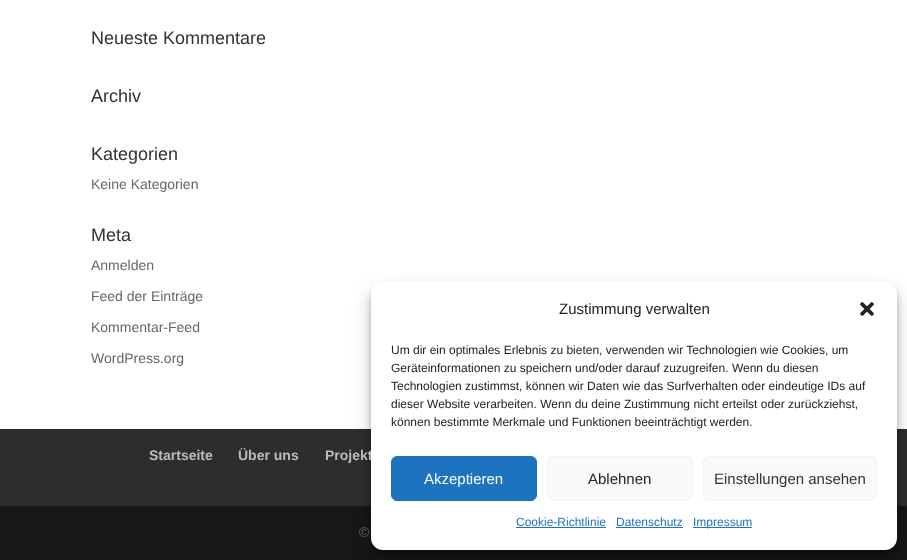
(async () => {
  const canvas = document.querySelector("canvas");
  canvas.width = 907;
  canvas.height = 560;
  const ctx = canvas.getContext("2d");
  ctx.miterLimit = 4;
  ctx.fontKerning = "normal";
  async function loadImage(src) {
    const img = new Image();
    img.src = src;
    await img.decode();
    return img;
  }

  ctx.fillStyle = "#ffffff";
  ctx.fillRect(0, 0, 907, 560);
  ctx.fillStyle = "#2d2d2d";
  ctx.fillRect(0, 429, 907, 77);
  ctx.fillStyle = "#171717";
  ctx.fillRect(0, 506, 907, 54);
  ctx.fillStyle = "rgba(0, 0, 0, 0.23)";
  ctx.filter = "blur(3px)";
  ctx.beginPath();
  ctx.roundRect(371, 288, 526, 268, 12);
  ctx.fill();
  ctx.filter = "none";
  ctx.fillStyle = "rgba(0, 0, 0, 0.19)";
  ctx.filter = "blur(10px)";
  ctx.beginPath();
  ctx.roundRect(371, 292, 526, 268, 12);
  ctx.fill();
  ctx.filter = "none";
  ctx.font = "18px Liberation Sans";
  ctx.fillStyle = "#333333";
  for (const [text, x, y] of [
    ["Neueste Kommentare", 91, 44],
    ["Archiv", 91, 102],
    ["Kategorien", 91, 160],
  ]) {
    ctx.fillText(text, x, y);
  }
  ctx.font = "14px Liberation Sans";
  ctx.fillStyle = "#666666";
  ctx.fillText("Keine Kategorien", 91, 189);
  ctx.font = "18px Liberation Sans";
  ctx.fillStyle = "#333333";
  ctx.fillText("Meta", 91, 241);
  ctx.font = "14px Liberation Sans";
  ctx.fillStyle = "#666666";
  for (const [text, x, y] of [
    ["Anmelden", 91, 270],
    ["Feed der Einträge", 91, 301],
    ["Kommentar-Feed", 91, 332],
    ["WordPress.org", 91, 363],
  ]) {
    ctx.fillText(text, x, y);
  }
  ctx.font = "bold 14px Liberation Sans";
  ctx.fillStyle = "#bbbbbb";
  for (const [text, x, y] of [
    ["Startseite", 149, 460],
    ["Über uns", 238, 460],
    ["Projekt", 325, 460],
  ]) {
    ctx.fillText(text, x, y);
  }
  ctx.font = "14px Liberation Sans";
  ctx.fillStyle = "#666666";
  ctx.fillText("©", 359, 537);
  ctx.fillStyle = "#ffffff";
  ctx.beginPath();
  ctx.roundRect(371, 282, 526, 268, 12);
  ctx.fill();
  ctx.font = "15px Liberation Sans";
  ctx.fillStyle = "#222222";
  ctx.fillText("Zustimmung verwalten", 559, 314);
  ctx.drawImage(await loadImage("img/1.png"), 860, 302, 14, 14);
  ctx.font = "12px Liberation Sans";
  for (const [text, x, y] of [
    ["Um dir ein optimales Erlebnis zu bieten, verwenden wir Technologien wie Cookies, um", 391, 354],
    ["Geräteinformationen zu speichern und/oder darauf zuzugreifen. Wenn du diesen", 391, 372],
    ["Technologien zustimmst, können wir Daten wie das Surfverhalten oder eindeutige IDs auf", 391, 390],
    ["dieser Website verarbeiten. Wenn du deine Zustimmung nicht erteilst oder zurückziehst,", 391, 408],
    ["können bestimmte Merkmale und Funktionen beeinträchtigt werden.", 391, 426],
  ]) {
    ctx.fillText(text, x, y);
  }
  ctx.fillStyle = "#1e73be";
  ctx.beginPath();
  ctx.roundRect(391.5, 456.5, 145, 44, 5.5);
  ctx.fill();
  ctx.strokeStyle = "#1e73be";
  ctx.stroke();
  ctx.font = "15px Liberation Sans";
  ctx.fillStyle = "#ffffff";
  ctx.fillText("Akzeptieren", 424, 484);
  ctx.fillStyle = "#f9f9f9";
  ctx.beginPath();
  ctx.roundRect(547.5, 456.5, 145, 44, 5.5);
  ctx.fill();
  ctx.strokeStyle = "#f2f2f2";
  ctx.stroke();
  ctx.fillStyle = "#222222";
  ctx.fillText("Ablehnen", 588, 484);
  ctx.fillStyle = "#f9f9f9";
  ctx.beginPath();
  ctx.roundRect(703.5, 456.5, 173, 44, 5.5);
  ctx.fill();
  ctx.stroke();
  ctx.fillStyle = "#333333";
  ctx.fillText("Einstellungen ansehen", 714, 484);
  ctx.font = "12px Liberation Sans";
  ctx.fillStyle = "#1e73be";
  ctx.fillText("Cookie-Richtlinie", 516, 526);
  ctx.fillRect(516, 527, 90, 1);
  ctx.fillText("Datenschutz", 616, 526);
  ctx.fillRect(616, 527, 67, 1);
  ctx.fillRect(693, 527, 59, 1);
  ctx.fillText("Impressum", 693, 526);
})();
